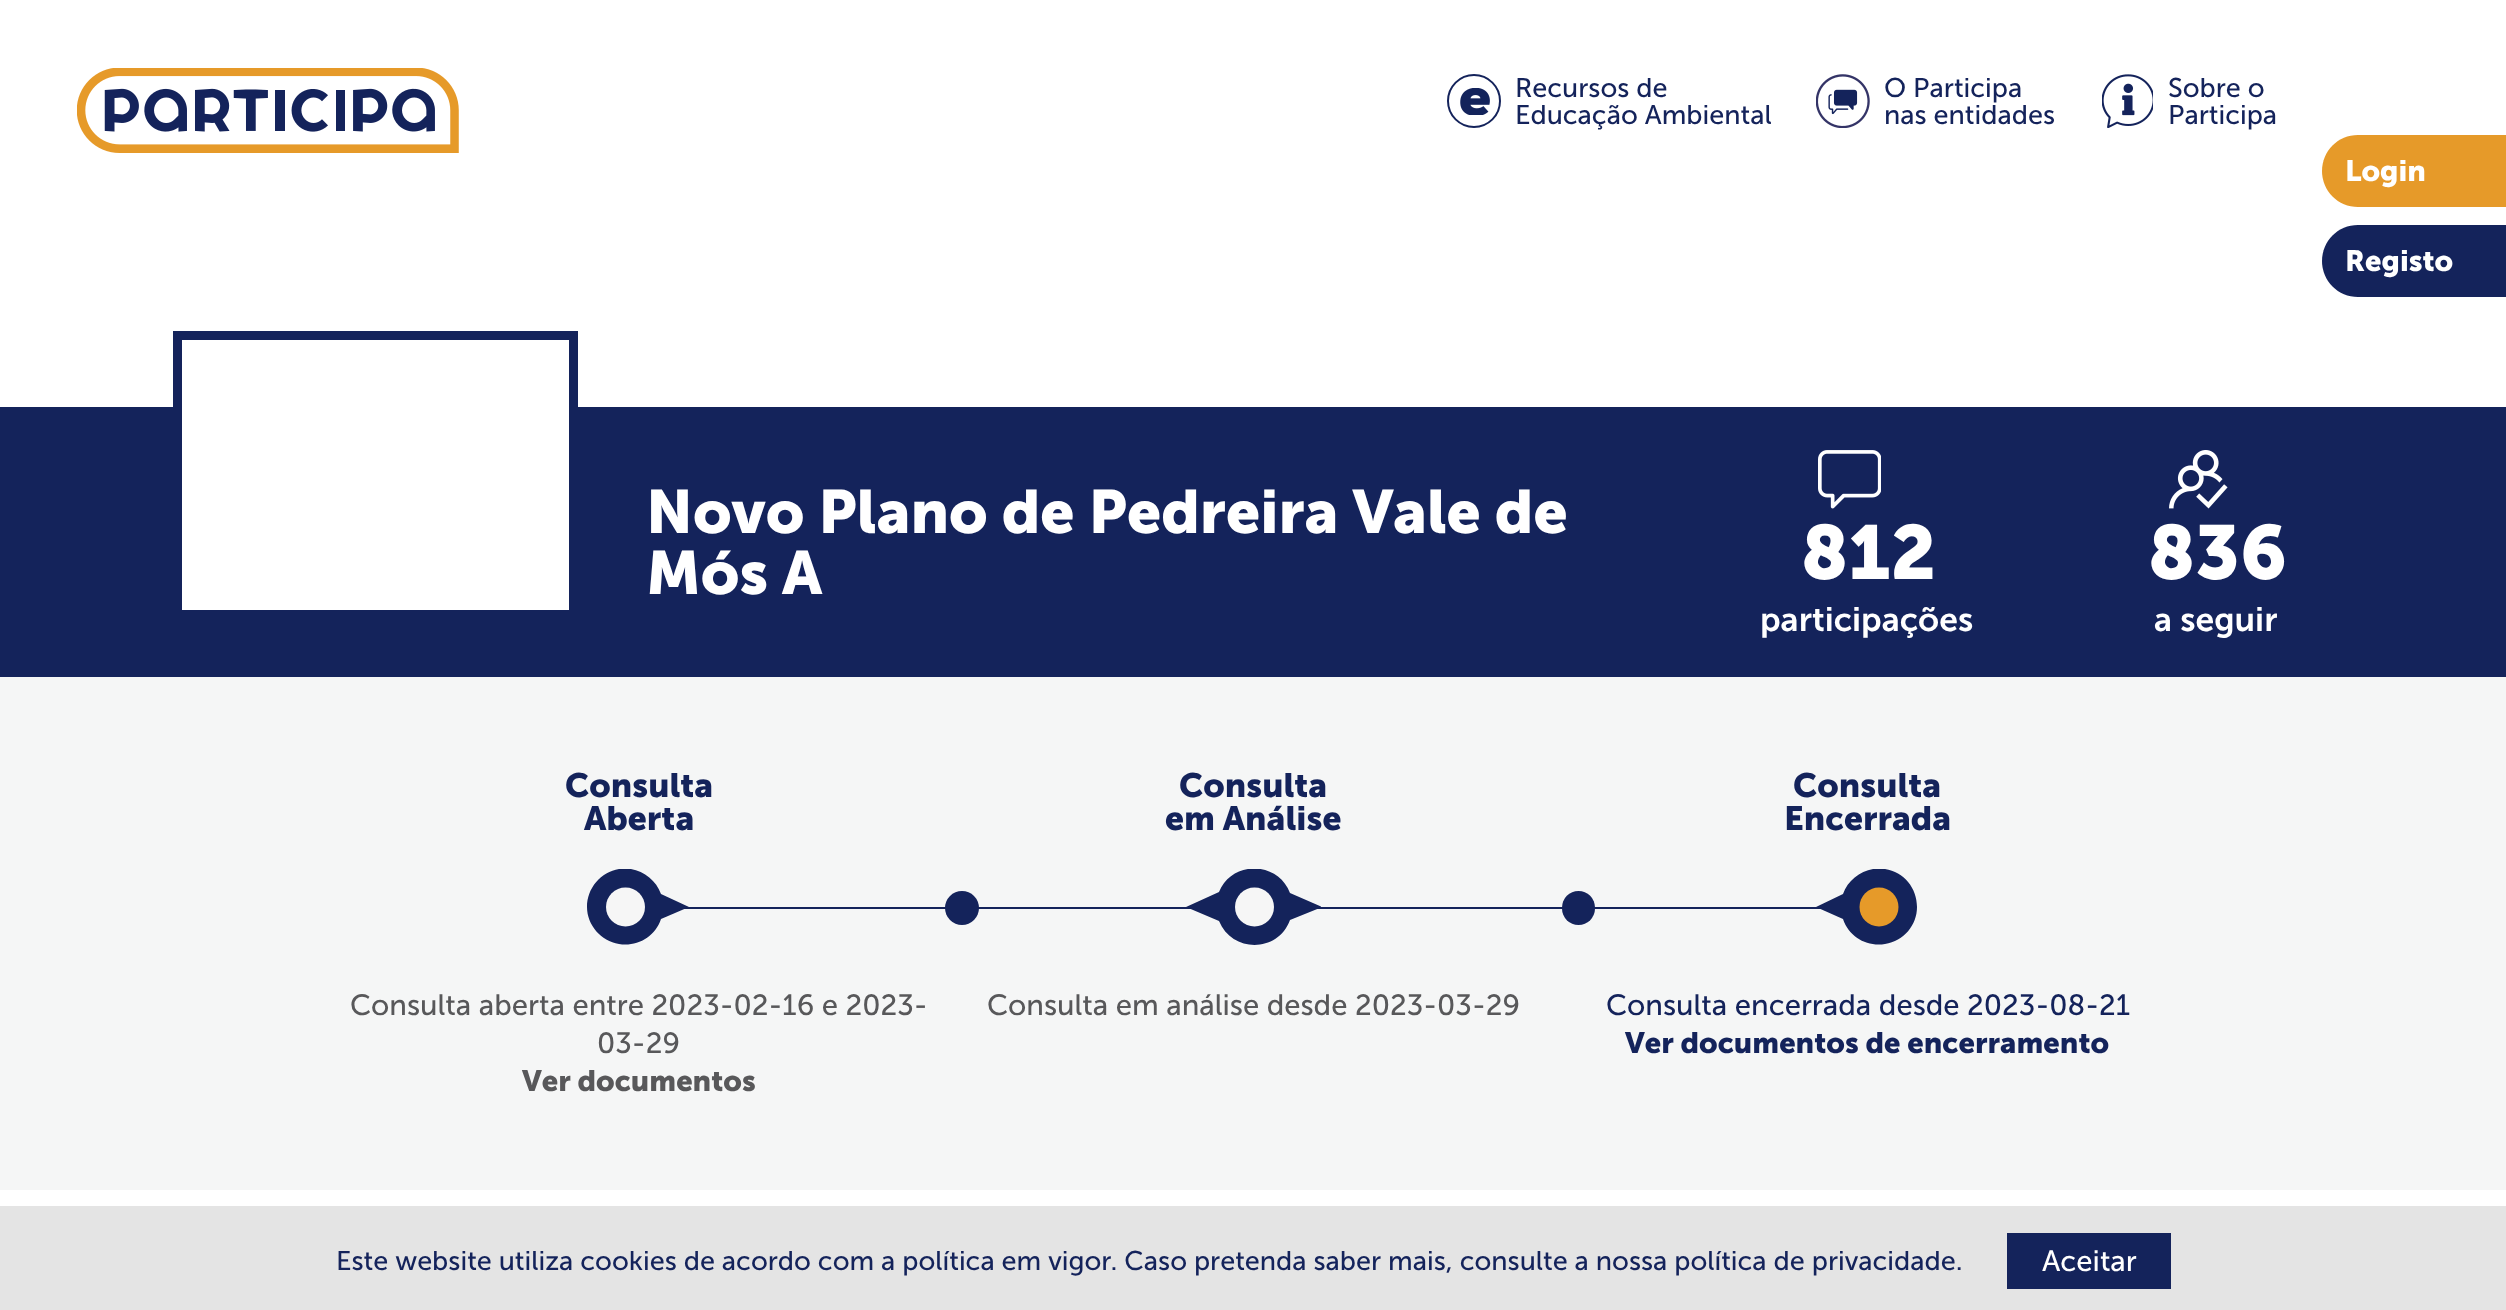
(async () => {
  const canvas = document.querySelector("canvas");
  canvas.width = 2506;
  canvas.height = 1310;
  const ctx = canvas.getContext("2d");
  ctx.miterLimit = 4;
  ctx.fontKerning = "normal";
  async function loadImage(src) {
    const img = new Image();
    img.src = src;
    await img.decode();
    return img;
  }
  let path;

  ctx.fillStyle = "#ffffff";
  ctx.fillRect(0, 0, 2506, 1310);
  ctx.drawImage(await loadImage("img/1.png"), 77, 68, 382, 85);
  ctx.drawImage(await loadImage("img/2.png"), 1460, 88, 30, 27);
  ctx.beginPath();
  ctx.arc(1474, 101, 26, 0, Math.PI * 2);
  ctx.strokeStyle = "#14235b";
  ctx.lineWidth = 2;
  ctx.stroke();
  ctx.drawImage(await loadImage("img/3.png"), 1816, 74, 54, 54);
  ctx.drawImage(await loadImage("img/4.png"), 2102, 74, 51, 54);
  ctx.fillStyle = "#e69a29";
  path = new Path2D("M2358 135H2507V207H2358C2338 207 2322 191 2322 171C2322 151 2338 135 2358 135Z");
  ctx.fill(path);
  ctx.fillStyle = "#14235b";
  path = new Path2D("M2358 225H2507V297H2358C2338 297 2322 281 2322 261C2322 241 2338 225 2358 225Z");
  ctx.fill(path);
  ctx.fillRect(0, 407, 2506, 270);
  ctx.fillStyle = "#ffffff";
  ctx.fillRect(182, 407, 387, 203);
  ctx.lineWidth = 9;
  ctx.strokeRect(177.5, 335.5, 396, 279);
  ctx.drawImage(await loadImage("img/5.png"), 1818, 450, 63, 59);
  ctx.drawImage(await loadImage("img/6.png"), 2169, 450, 59, 59);
  ctx.fillStyle = "#f5f6f6";
  ctx.fillRect(0, 677, 2506, 513);
  ctx.fillStyle = "#14235b";
  ctx.fillRect(684, 907, 1137, 2);
  ctx.save();
  ctx.beginPath();
  ctx.rect(587, 869, 102, 76);
  ctx.clip();
  path = new Path2D("M689 907L661 894C655 877 637 866 619 869C601 872 587 888 587 907C587 925 601 941 619 944C637 947 655 937 661 919Z");
  ctx.fill(path);
  ctx.restore();
  ctx.fillStyle = "#f6f6f6";
  ctx.beginPath();
  ctx.arc(625.5, 907, 19.5, 0, Math.PI * 2);
  ctx.fill();
  ctx.fillStyle = "#14235b";
  ctx.beginPath();
  ctx.arc(962, 908, 17, 0, Math.PI * 2);
  ctx.fill();
  ctx.save();
  ctx.beginPath();
  ctx.rect(1186, 869, 135, 76);
  ctx.clip();
  path = new Path2D("M1290 893C1278 861 1232 860 1219 892L1186 907L1219 921C1232 953 1278 953 1290 920L1322 907Z");
  ctx.fill(path);
  ctx.restore();
  ctx.fillStyle = "#f6f6f6";
  ctx.beginPath();
  ctx.arc(1254.5, 907, 19.5, 0, Math.PI * 2);
  ctx.fill();
  ctx.fillStyle = "#14235b";
  ctx.beginPath();
  ctx.roundRect(1562, 891, 33, 34, 16.5);
  ctx.fill();
  ctx.save();
  ctx.beginPath();
  ctx.rect(1816, 869, 103, 76);
  ctx.clip();
  path = new Path2D("M1816 907L1843 919C1849 937 1867 947 1885 944C1904 941 1917 925 1917 907C1917 888 1904 872 1885 869C1867 866 1849 877 1843 894Z");
  ctx.fill(path);
  ctx.restore();
  ctx.fillStyle = "#e69a29";
  ctx.beginPath();
  ctx.arc(1879, 907, 19.5, 0, Math.PI * 2);
  ctx.fill();
  ctx.fillStyle = "#e4e4e4";
  ctx.fillRect(0, 1206, 2506, 104);
  ctx.fillStyle = "#14235b";
  ctx.fillRect(2007, 1233, 164, 56);
  ctx.font = "27px Museo Sans";
  for (const [text, x, y] of [
    ["Recursos de", 1515, 97],
    ["Educação Ambiental", 1515, 124],
    ["O Participa", 1884, 97],
    ["nas entidades", 1884, 124],
    ["Sobre o", 2168, 97],
    ["Participa", 2168, 124],
  ]) {
    ctx.fillText(text, x, y);
  }
  ctx.font = "800 29.25px 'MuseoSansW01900'";
  ctx.fillStyle = "#ffffff";
  ctx.fillText("Login", 2345, 181);
  ctx.fillText("Registo", 2345, 271);
  ctx.font = "800 60.75px 'MuseoSansW01900'";
  ctx.fillText("Novo Plano de Pedreira Vale de", 646, 533);
  ctx.fillText("Mós A", 646, 594);
  ctx.font = "800 76px 'MuseoSansW01900'";
  ctx.fillText("812", 1801, 579);
  ctx.font = "600 33.75px Museo Sans";
  ctx.fillText("participações", 1760, 631);
  ctx.font = "800 76px 'MuseoSansW01900'";
  ctx.fillText("836", 2148, 579);
  ctx.font = "600 33.75px Museo Sans";
  ctx.fillText("a seguir", 2154, 631);
  ctx.font = "800 33.75px 'MuseoSansW01900'";
  ctx.fillStyle = "#14235b";
  ctx.fillText("Consulta", 565, 797);
  ctx.fillText("Aberta", 584, 830);
  ctx.font = "29.25px Museo Sans";
  ctx.fillStyle = "#58585a";
  ctx.fillText("Consulta aberta entre 2023-02-16 e 2023-", 350, 1015);
  ctx.fillText("03-29", 597, 1053);
  ctx.font = "800 29.25px 'MuseoSansW01900'";
  ctx.fillText("Ver documentos", 522, 1091);
  ctx.font = "800 33.75px 'MuseoSansW01900'";
  ctx.fillStyle = "#14235b";
  ctx.fillText("Consulta", 1179, 797);
  ctx.fillText("em Análise", 1165, 830);
  ctx.font = "29.25px Museo Sans";
  ctx.fillStyle = "#58585a";
  ctx.fillText("Consulta em análise desde 2023-03-29", 987, 1015);
  ctx.font = "800 33.75px 'MuseoSansW01900'";
  ctx.fillStyle = "#14235b";
  ctx.fillText("Consulta", 1793, 797);
  ctx.fillText("Encerrada", 1784, 830);
  ctx.font = "29.25px Museo Sans";
  ctx.fillText("Consulta encerrada desde 2023-08-21", 1606, 1015);
  ctx.font = "800 29.25px 'MuseoSansW01900'";
  ctx.fillText("Ver documentos de encerramento", 1625, 1053);
  ctx.font = "27px Museo Sans";
  ctx.fillText("Este website utiliza cookies de acordo com a política em vigor. Caso pretenda saber mais, consulte a nossa política de privacidade.", 336, 1270);
  ctx.font = "29.25px Museo Sans";
  ctx.fillStyle = "#ffffff";
  ctx.fillText("Aceitar", 2042, 1271);
})();
